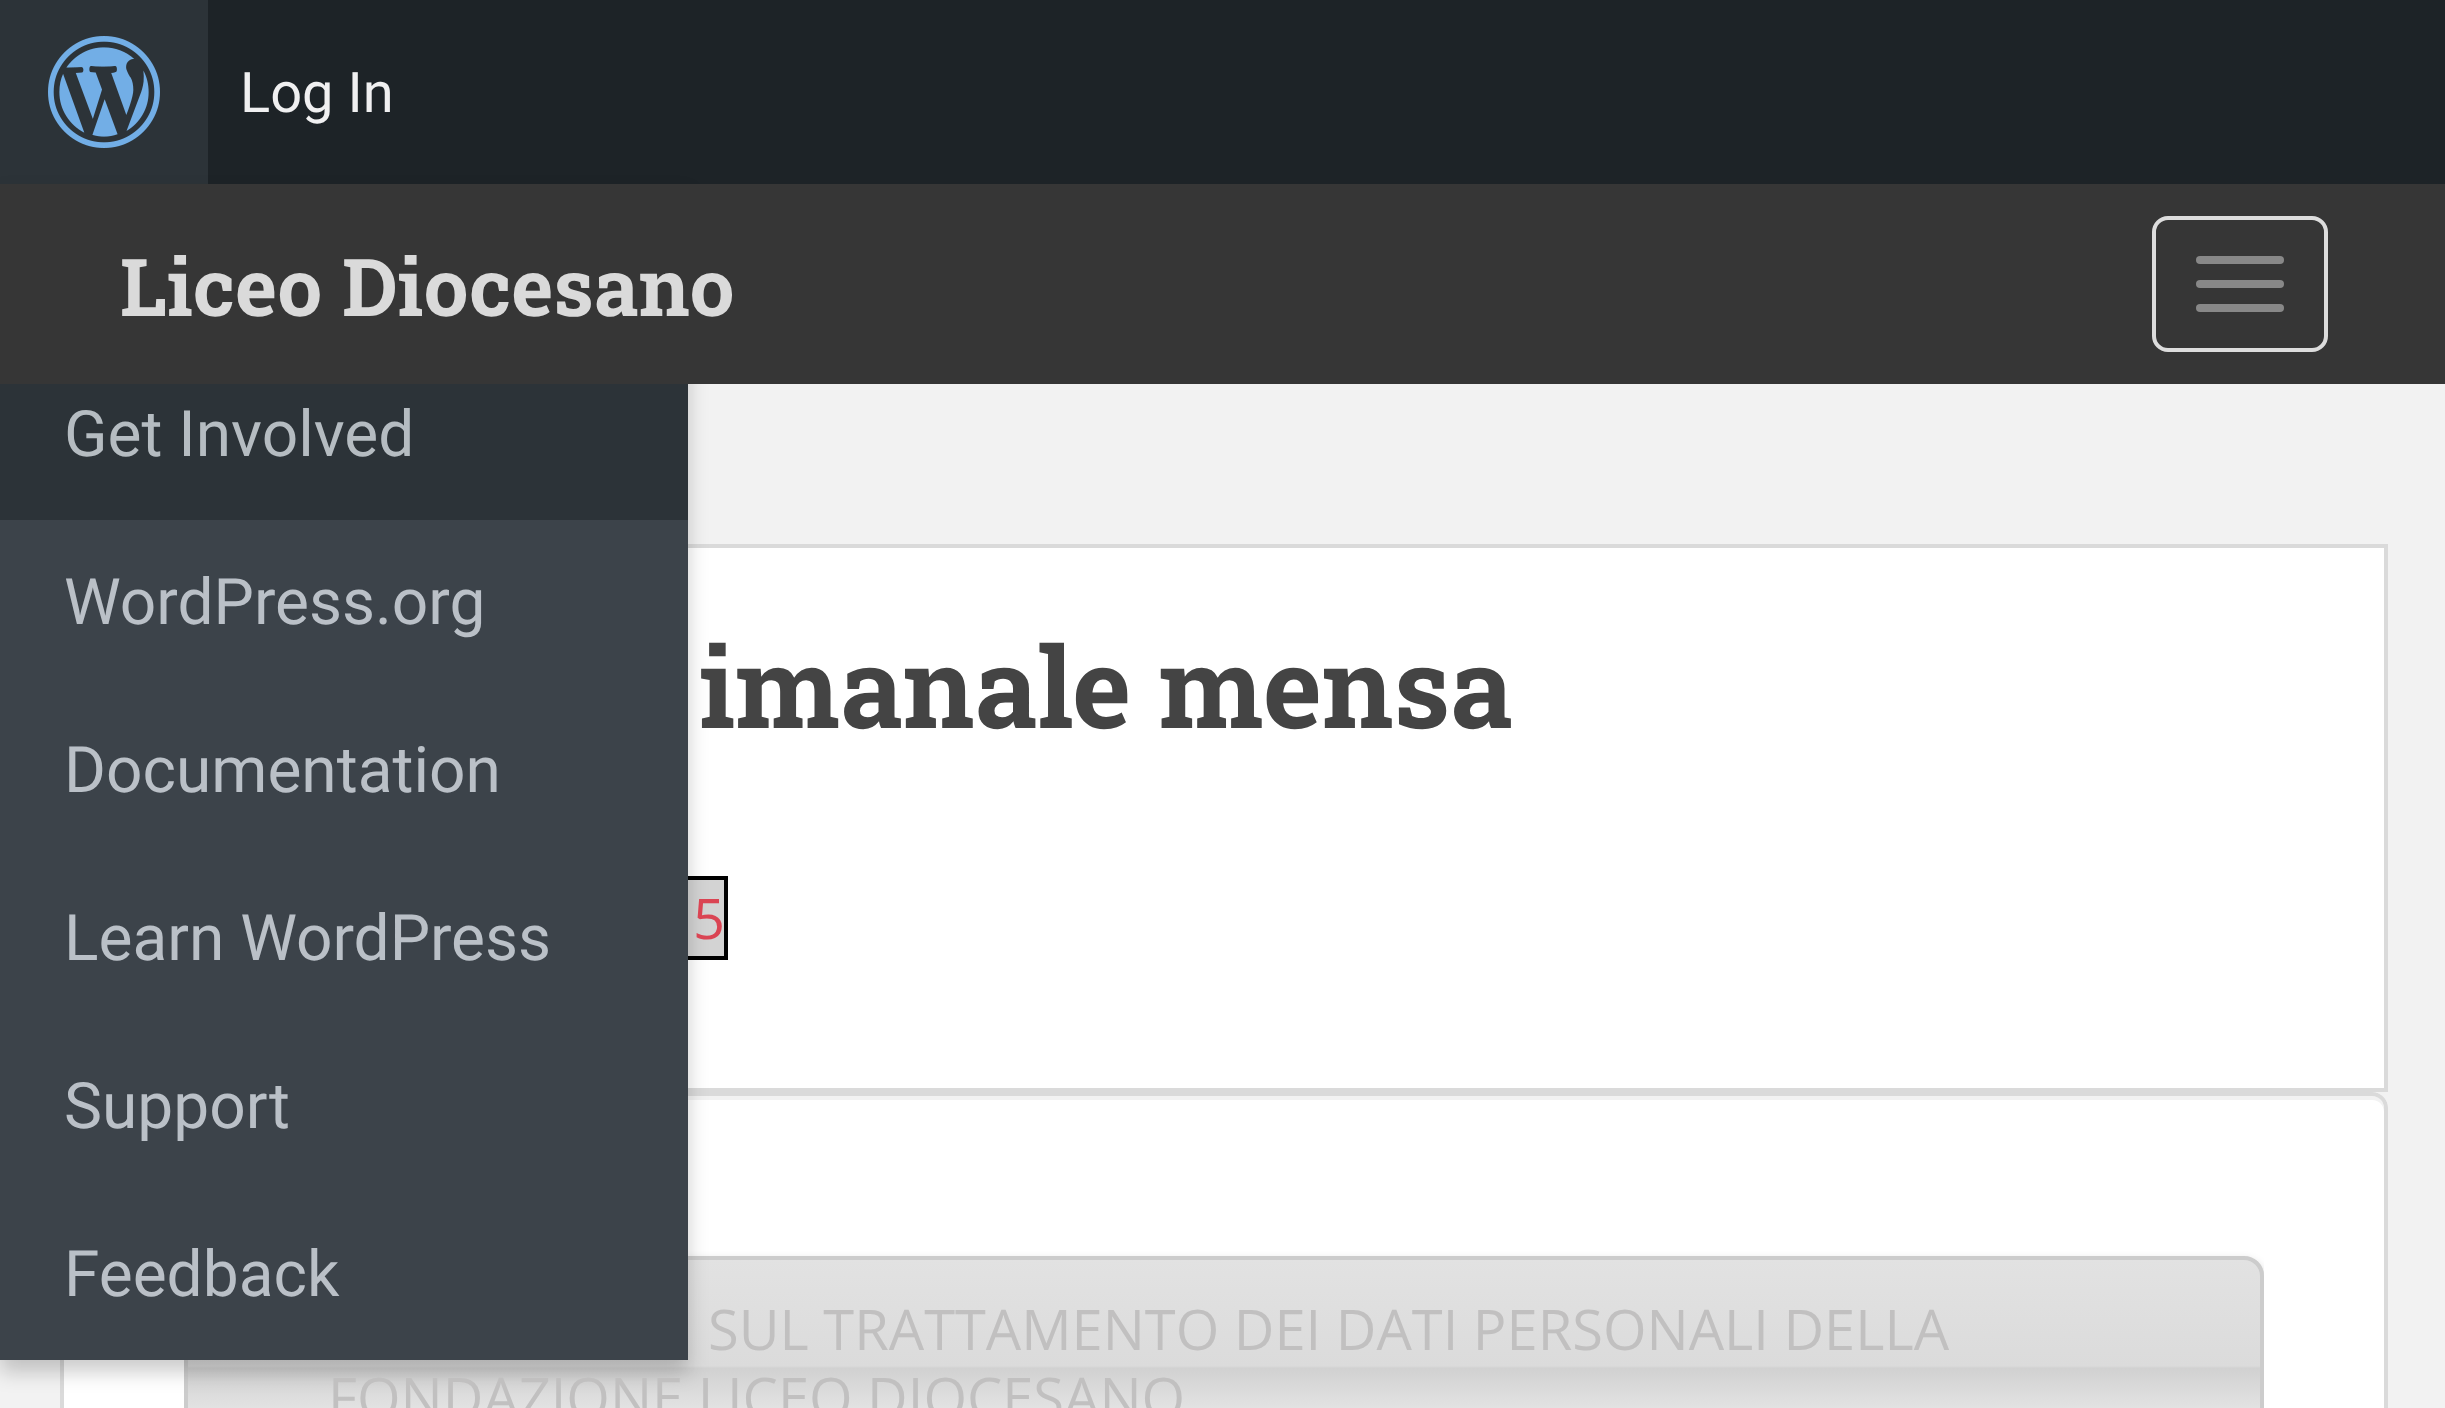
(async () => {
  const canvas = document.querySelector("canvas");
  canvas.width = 2445;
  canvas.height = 1408;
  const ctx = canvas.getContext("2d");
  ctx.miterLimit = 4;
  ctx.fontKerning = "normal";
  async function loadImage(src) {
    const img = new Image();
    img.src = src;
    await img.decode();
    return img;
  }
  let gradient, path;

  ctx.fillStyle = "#f2f2f2";
  ctx.fillRect(0, 0, 2445, 1408);
  ctx.fillStyle = "#1d2327";
  ctx.fillRect(208, 0, 2237, 184);
  ctx.fillStyle = "#2c3338";
  ctx.fillRect(0, 0, 208, 184);
  ctx.drawImage(await loadImage("img/1.png"), 48, 36, 112, 112);
  ctx.fillStyle = "#ffffff";
  ctx.fillRect(688, 548, 1696, 540);
  ctx.strokeStyle = "#dadada";
  ctx.lineWidth = 4;
  ctx.strokeRect(62, 546, 2324, 544);
  ctx.fillStyle = "#d3d3d3";
  ctx.fillRect(688, 880, 36, 76);
  ctx.strokeStyle = "#000000";
  ctx.strokeRect(166, 878, 560, 80);
  ctx.fillStyle = "#ffffff";
  ctx.beginPath();
  ctx.roundRect(60, 1092, 2328, 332, 16);
  ctx.fill();
  ctx.fillStyle = "#f2f2f2";
  path = new Path2D("M76 1100H2372C2379 1100 2384 1105 2384 1112V1108C2384 1101 2379 1096 2372 1096H76C69 1096 64 1101 64 1108V1112C64 1105 69 1100 76 1100Z");
  ctx.fill(path);
  ctx.beginPath();
  ctx.roundRect(62, 1094, 2324, 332, 14);
  ctx.strokeStyle = "#dadada";
  ctx.stroke();
  ctx.save();
  ctx.beginPath();
  ctx.rect(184, 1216, 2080, 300);
  ctx.clip();
  ctx.fillStyle = "rgba(0, 0, 0, 0.2)";
  ctx.filter = "blur(4px)";
  ctx.beginPath();
  ctx.roundRect(184, 1260, 2080, 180, 20);
  ctx.fill();
  ctx.filter = "none";
  ctx.restore();
  ctx.save();
  ctx.beginPath();
  ctx.roundRect(184, 1256, 2080, 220, 20);
  ctx.clip();
  gradient = ctx.createLinearGradient(1224, 1260, 1224, 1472);
  gradient.addColorStop(0, "#e2e2e2");
  gradient.addColorStop(0.5, "#dbdbdb");
  gradient.addColorStop(0.51, "#d1d1d1");
  gradient.addColorStop(1, "#fefefe");
  ctx.fillStyle = gradient;
  ctx.fillRect(188, 1260, 2076, 148);
  ctx.restore();
  ctx.beginPath();
  ctx.roundRect(186, 1258, 2076, 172, 18);
  ctx.strokeStyle = "#cccccc";
  ctx.stroke();
  ctx.fillStyle = "rgba(0, 0, 0, 0.2)";
  ctx.filter = "blur(10px)";
  ctx.beginPath();
  ctx.rect(0, 196, 688, 1176);
  ctx.fill();
  ctx.filter = "none";
  for (const [x, y, w, h, color] of [
    [0, 384, 688, 136, "#2c3338"],
    [0, 520, 688, 840, "#3c434a"],
    [0, 184, 2445, 200, "#363636"],
  ]) {
    ctx.fillStyle = color;
    ctx.fillRect(x, y, w, h);
  }
  ctx.beginPath();
  ctx.roundRect(2154, 218, 172, 132, 14);
  ctx.strokeStyle = "#dddddd";
  ctx.stroke();
  ctx.fillStyle = "#888888";
  ctx.beginPath();
  ctx.roundRect(2196, 256, 88, 8, 4);
  ctx.fill();
  ctx.beginPath();
  ctx.roundRect(2196, 280, 88, 8, 4);
  ctx.fill();
  ctx.beginPath();
  ctx.roundRect(2196, 304, 88, 8, 4);
  ctx.fill();
  ctx.font = "56px Roboto";
  ctx.fillStyle = "#f0f0f1";
  ctx.fillText("Log In", 240, 112);
  ctx.font = "64px Roboto";
  ctx.fillStyle = "#b5bcc1";
  ctx.fillText("Get Involved", 64, 456);
  ctx.fillStyle = "#bac0c7";
  for (const [text, x, y] of [
    ["WordPress.org", 64, 624],
    ["Documentation", 64, 792],
    ["Learn WordPress", 64, 960],
    ["Support", 64, 1128],
    ["Feedback", 64, 1296],
  ]) {
    ctx.fillText(text, x, y);
  }
  ctx.font = "bold 80px Roboto Slab";
  ctx.fillStyle = "#dadada";
  ctx.fillText("Liceo Diocesano", 120, 316);
  ctx.font = "bold 112px Roboto Slab";
  ctx.fillStyle = "#444444";
  ctx.fillText("imanale mensa", 699, 728);
  ctx.font = "56px Open Sans";
  ctx.fillStyle = "#da4453";
  ctx.fillText("5", 693, 939);
  ctx.fillStyle = "#c1c0c0";
  ctx.fillText("SUL TRATTAMENTO DEI DATI PERSONALI DELLA", 708, 1350);
  ctx.fillText("FONDAZIONE LICEO DIOCESANO", 328, 1418);
})();
